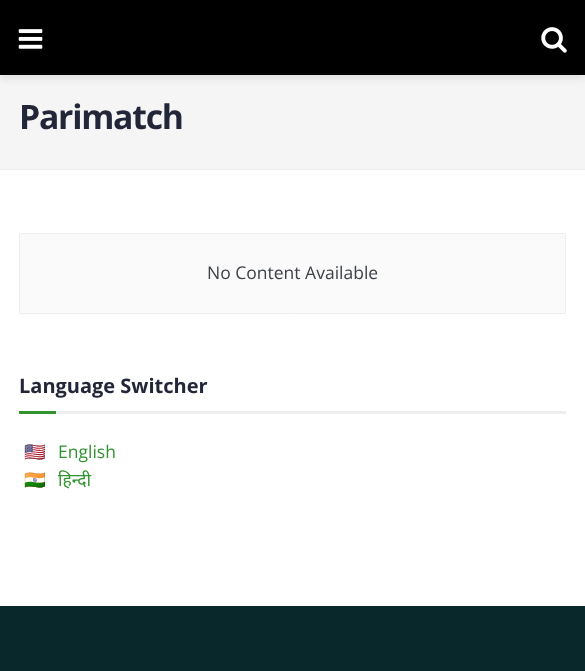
(async () => {
  const canvas = document.querySelector("canvas");
  canvas.width = 585;
  canvas.height = 671;
  const ctx = canvas.getContext("2d");
  ctx.miterLimit = 4;
  ctx.fontKerning = "normal";
  async function loadImage(src) {
    const img = new Image();
    img.src = src;
    await img.decode();
    return img;
  }

  ctx.fillStyle = "#09282c";
  ctx.fillRect(0, 0, 585, 671);
  ctx.fillStyle = "#f5f5f5";
  ctx.fillRect(0, 75, 585, 94);
  ctx.fillStyle = "rgba(0, 0, 0, 0.1)";
  ctx.filter = "blur(4px)";
  ctx.beginPath();
  ctx.rect(0, 3, 585, 75);
  ctx.fill();
  ctx.filter = "none";
  ctx.fillStyle = "#000000";
  ctx.fillRect(0, 0, 585, 75);
  ctx.drawImage(await loadImage("img/1.png"), 18, 29, 25, 20);
  ctx.drawImage(await loadImage("img/2.png"), 541, 27, 26, 26);
  ctx.fillStyle = "#ffffff";
  ctx.fillRect(0, 170, 585, 436);
  ctx.fillStyle = "#eeeeee";
  ctx.fillRect(0, 169, 585, 1);
  ctx.fillStyle = "#fafafa";
  ctx.beginPath();
  ctx.rect(19.5, 233.5, 546, 80);
  ctx.fill();
  ctx.strokeStyle = "#eeeeee";
  ctx.stroke();
  ctx.fillStyle = "#eeeeee";
  ctx.fillRect(56, 411, 510, 3);
  ctx.fillStyle = "#31942e";
  ctx.fillRect(19, 411, 37, 3);
  ctx.letterSpacing = "-1.25px";
  ctx.font = "bold 33.75px Open Sans";
  ctx.fillStyle = "#222638";
  ctx.fillText("Parimatch", 19, 129);
  ctx.letterSpacing = "0px";
  ctx.font = "17.5px Open Sans";
  ctx.fillStyle = "#3d4248";
  ctx.fillText("No Content Available", 207, 279);
  ctx.font = "bold 20px Open Sans";
  ctx.fillStyle = "#222638";
  ctx.fillText("Language Switcher", 19, 393);
  ctx.font = "17.5px Noto Color Emoji";
  ctx.fillStyle = "#3d4248";
  ctx.fillText("🇺🇸", 24, 458);
  ctx.font = "17.5px Open Sans";
  ctx.fillStyle = "#31942e";
  ctx.fillText("English", 58, 458);
  ctx.font = "17.5px Noto Color Emoji";
  ctx.fillStyle = "#3d4248";
  ctx.fillText("🇮🇳", 24, 486);
  ctx.font = "17.5px Noto Sans";
  ctx.fillStyle = "#31942e";
  ctx.fillText("हिन्दी", 58, 486);
})();
